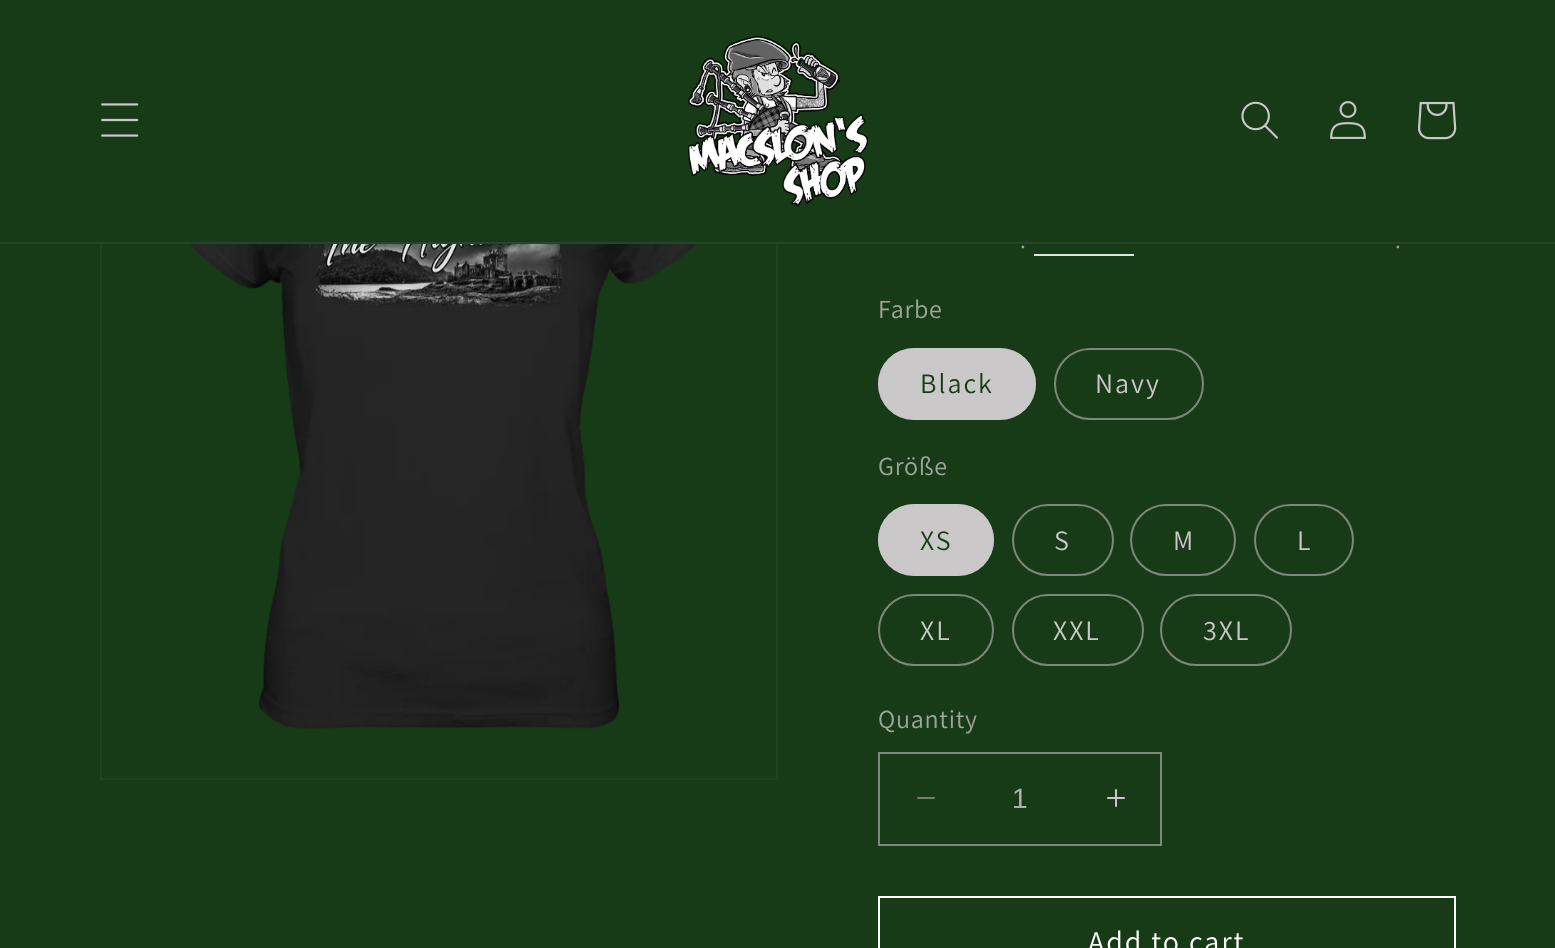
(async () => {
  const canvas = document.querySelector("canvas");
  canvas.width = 1555;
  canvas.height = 948;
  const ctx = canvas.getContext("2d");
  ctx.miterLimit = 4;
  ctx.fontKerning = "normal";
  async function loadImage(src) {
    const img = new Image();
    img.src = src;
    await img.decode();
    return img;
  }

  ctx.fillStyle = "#183b17";
  ctx.fillRect(0, 0, 1555, 948);
  ctx.strokeStyle = "#214220";
  ctx.lineWidth = 2;
  ctx.strokeRect(101, 61, 676, 718);
  ctx.fillRect(100, 60, 678, 182);
  ctx.fillStyle = "#264625";
  ctx.fillRect(0, 242, 1555, 2);
  ctx.drawImage(await loadImage("img/1.png"), 101, 103, 38, 34);
  ctx.drawImage(await loadImage("img/2.png"), 688, 35, 180, 172);
  ctx.drawImage(await loadImage("img/3.png"), 1241, 101, 37, 38);
  ctx.drawImage(await loadImage("img/4.png"), 1330, 101, 36, 38);
  ctx.drawImage(await loadImage("img/5.png"), 1418, 101, 39, 39);
  ctx.drawImage(await loadImage("img/6.png"), 189, 244, 509, 485);
  ctx.fillStyle = "#dce2dc";
  ctx.fillRect(1034, 254, 100, 2);
  ctx.fillStyle = "#cac8c8";
  ctx.beginPath();
  ctx.roundRect(878, 348, 158, 72, 36);
  ctx.fill();
  ctx.beginPath();
  ctx.roundRect(879, 349, 156, 70, 35);
  ctx.strokeStyle = "rgba(202, 200, 200, 0.55)";
  ctx.stroke();
  ctx.beginPath();
  ctx.roundRect(1055, 349, 148, 70, 35);
  ctx.strokeStyle = "#7a8978";
  ctx.stroke();
  ctx.beginPath();
  ctx.roundRect(878, 504, 116, 72, 36);
  ctx.fill();
  ctx.beginPath();
  ctx.roundRect(879, 505, 114, 70, 35);
  ctx.strokeStyle = "rgba(202, 200, 200, 0.55)";
  ctx.stroke();
  ctx.beginPath();
  ctx.roundRect(1013, 505, 100, 70, 35);
  ctx.strokeStyle = "#7a8978";
  ctx.stroke();
  ctx.beginPath();
  ctx.roundRect(1131, 505, 104, 70, 35);
  ctx.stroke();
  ctx.beginPath();
  ctx.roundRect(1255, 505, 98, 70, 35);
  ctx.stroke();
  ctx.beginPath();
  ctx.roundRect(879, 595, 114, 70, 35);
  ctx.stroke();
  ctx.beginPath();
  ctx.roundRect(1013, 595, 130, 70, 35);
  ctx.stroke();
  ctx.beginPath();
  ctx.roundRect(1161, 595, 130, 70, 35);
  ctx.stroke();
  ctx.drawImage(await loadImage("img/7.png"), 917, 797, 18, 2);
  ctx.drawImage(await loadImage("img/8.png"), 1107, 789, 18, 18);
  ctx.strokeRect(879, 753, 282, 92);
  ctx.strokeStyle = "#ffffff";
  ctx.strokeRect(879, 897, 576, 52);
  ctx.letterSpacing = "1px";
  ctx.font = "24px Assistant";
  ctx.fillStyle = "#9ea59c";
  ctx.fillText(".", 1020, 248);
  ctx.fillText(".", 1395, 248);
  ctx.letterSpacing = "0.75px";
  ctx.font = "26px Assistant";
  ctx.fillText("Farbe", 878, 318);
  ctx.letterSpacing = "2px";
  ctx.font = "28px Assistant";
  ctx.fillStyle = "#183b17";
  ctx.fillText("Black", 920, 393);
  ctx.fillStyle = "#cac8c8";
  ctx.fillText("Navy", 1095, 393);
  ctx.letterSpacing = "0.75px";
  ctx.font = "26px Assistant";
  ctx.fillStyle = "#9ea59c";
  ctx.fillText("Größe", 878, 475);
  ctx.letterSpacing = "2px";
  ctx.font = "28px Assistant";
  ctx.fillStyle = "#183b17";
  ctx.fillText("XS", 920, 550);
  ctx.fillStyle = "#cac8c8";
  for (const [text, x, y] of [
    ["S", 1054, 550],
    ["M", 1173, 550],
    ["L", 1297, 550],
    ["XL", 920, 640],
    ["XXL", 1053, 640],
    ["3XL", 1203, 640],
  ]) {
    ctx.fillText(text, x, y);
  }
  ctx.letterSpacing = "0.75px";
  ctx.font = "26px Assistant";
  ctx.fillStyle = "#9ea59c";
  ctx.fillText("Quantity", 878, 728);
  ctx.letterSpacing = "0px";
  ctx.font = "28px Liberation Sans";
  ctx.fillStyle = "#afb3ad";
  ctx.fillText("1", 1012, 808);
  ctx.letterSpacing = "2px";
  ctx.font = "30px Assistant";
  ctx.fillStyle = "#ffffff";
  ctx.fillText("Add to cart", 1088, 952);
})();
